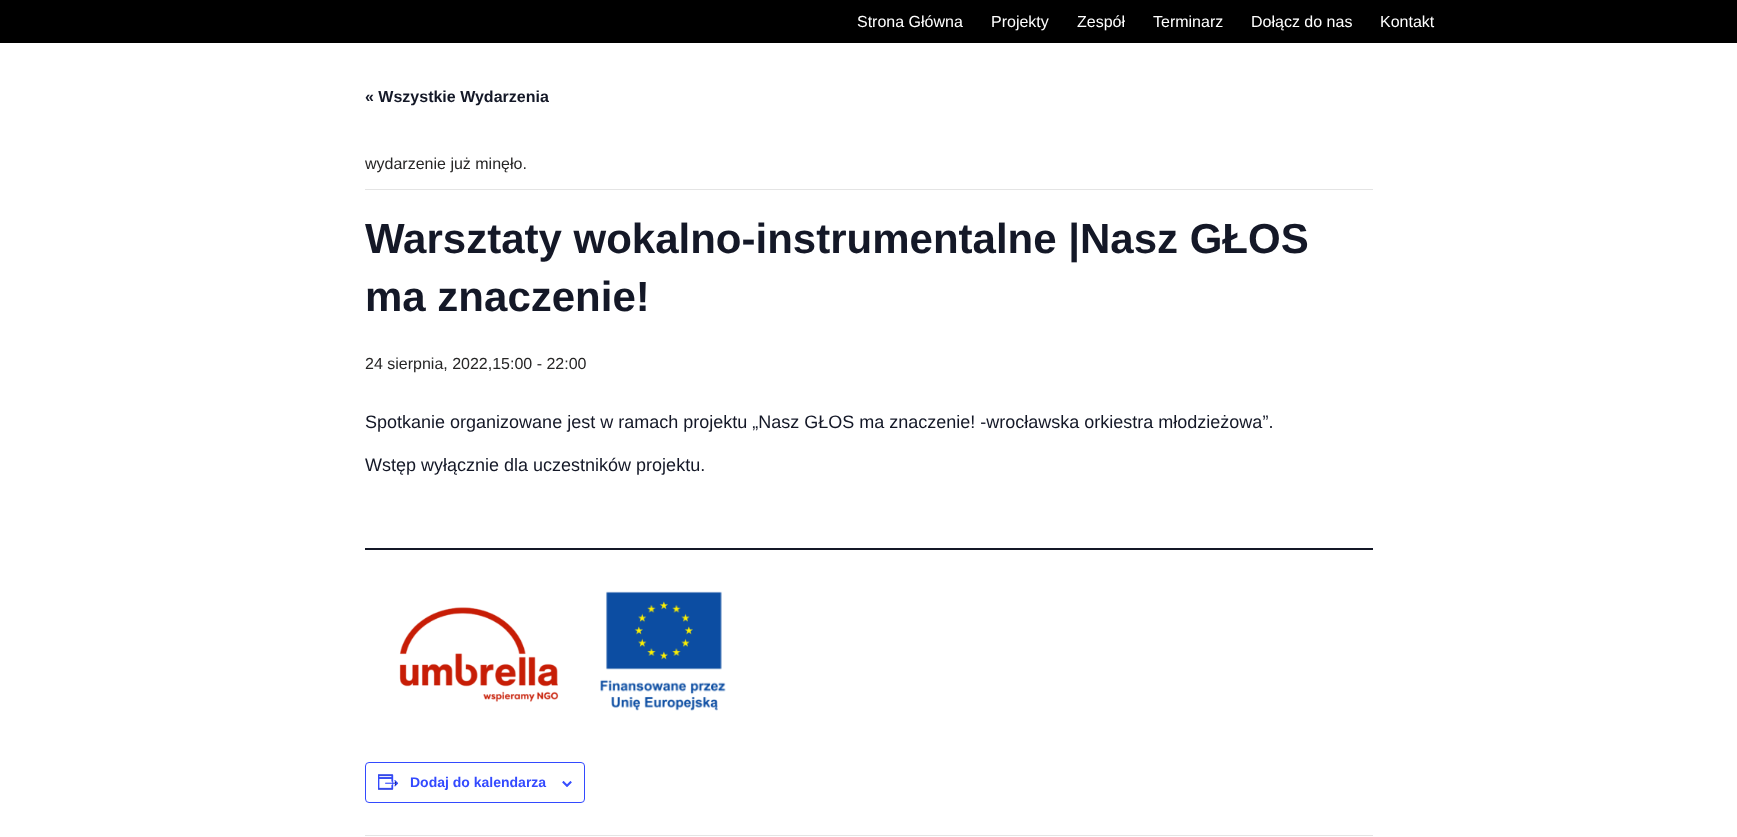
(async () => {
  const canvas = document.querySelector("canvas");
  canvas.width = 1737;
  canvas.height = 837;
  const ctx = canvas.getContext("2d");
  ctx.miterLimit = 4;
  ctx.fontKerning = "normal";
  async function loadImage(src) {
    const img = new Image();
    img.src = src;
    await img.decode();
    return img;
  }

  ctx.fillStyle = "#ffffff";
  ctx.fillRect(0, 0, 1737, 837);
  for (const [x, y, w, h, color] of [
    [0, 0, 1737, 43, "#000000"],
    [365, 189, 1008, 1, "#e4e4e4"],
    [365, 548, 1008, 2, "#141827"],
  ]) {
    ctx.fillStyle = color;
    ctx.fillRect(x, y, w, h);
  }
  ctx.drawImage(await loadImage("img/1.png"), 399, 607, 160, 95);
  ctx.drawImage(await loadImage("img/2.png"), 600, 591, 126, 120);
  ctx.beginPath();
  ctx.roundRect(365.5, 762.5, 219, 40, 3.5);
  ctx.strokeStyle = "#334aff";
  ctx.stroke();
  ctx.drawImage(await loadImage("img/3.png"), 378, 774, 21, 16);
  ctx.drawImage(await loadImage("img/4.png"), 562, 781, 10, 6);
  ctx.fillStyle = "#e4e4e4";
  ctx.fillRect(365, 835, 1008, 1);
  ctx.font = "16px Liberation Sans";
  ctx.fillStyle = "#ffffff";
  for (const [text, x, y] of [
    ["Strona Główna", 857, 27],
    ["Projekty", 991, 27],
    ["Zespół", 1077, 27],
    ["Terminarz", 1153, 27],
    ["Dołącz do nas", 1251, 27],
    ["Kontakt", 1380, 27],
  ]) {
    ctx.fillText(text, x, y);
  }
  ctx.font = "bold 16px Liberation Sans";
  ctx.fillStyle = "#141827";
  ctx.fillText("« Wszystkie Wydarzenia", 365, 102);
  ctx.font = "16px Liberation Sans";
  ctx.fillStyle = "#272626";
  ctx.fillText("wydarzenie już minęło.", 365, 169);
  ctx.font = "bold 42px Liberation Sans";
  ctx.fillStyle = "#141827";
  ctx.fillText("Warsztaty wokalno-instrumentalne |Nasz GŁOS", 365, 253);
  ctx.fillText("ma znaczenie!", 365, 311);
  ctx.font = "16px Liberation Sans";
  ctx.fillStyle = "#272626";
  ctx.fillText("24 sierpnia, 2022,15:00 - 22:00", 365, 369);
  ctx.font = "18px Liberation Sans";
  ctx.fillStyle = "#141827";
  ctx.fillText("Spotkanie organizowane jest w ramach projektu „Nasz GŁOS ma znaczenie! -wrocławska orkiestra młodzieżowa”.", 365, 428);
  ctx.fillText("Wstęp wyłącznie dla uczestników projektu.", 365, 471);
  ctx.font = "bold 14px Liberation Sans";
  ctx.fillStyle = "#334aff";
  ctx.fillText("Dodaj do kalendarza", 410, 787);
})();
